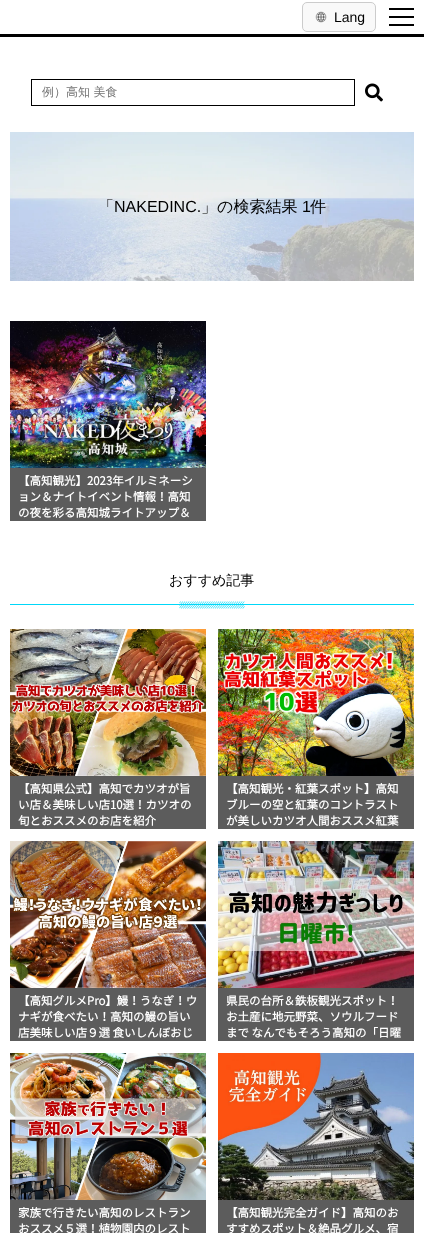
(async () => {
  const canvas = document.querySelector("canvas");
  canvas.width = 424;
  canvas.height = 1233;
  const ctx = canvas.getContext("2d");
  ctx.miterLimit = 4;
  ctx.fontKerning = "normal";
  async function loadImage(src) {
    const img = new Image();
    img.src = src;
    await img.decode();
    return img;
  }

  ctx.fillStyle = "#ffffff";
  ctx.fillRect(0, 0, 424, 1233);
  ctx.fillStyle = "#000000";
  ctx.fillRect(0, 34, 424, 3);
  ctx.fillStyle = "#f9f9f9";
  ctx.beginPath();
  ctx.roundRect(302.5, 2.5, 73, 29, 4.5);
  ctx.fill();
  ctx.strokeStyle = "#cccccc";
  ctx.stroke();
  ctx.drawImage(await loadImage("img/1.png"), 315, 11, 12, 12);
  for (const [x, y, w, h, color] of [
    [389, 8, 25, 2, "#000000"],
    [389, 16, 25, 2, "#000000"],
    [389, 24, 25, 2, "#000000"],
  ]) {
    ctx.fillStyle = color;
    ctx.fillRect(x, y, w, h);
  }
  ctx.strokeStyle = "#000000";
  ctx.strokeRect(31.5, 79.5, 323, 26);
  ctx.drawImage(await loadImage("img/2.png"), 365, 83, 18, 19);
  ctx.drawImage(await loadImage("img/3.png"), 10, 132, 404, 149);
  ctx.drawImage(await loadImage("img/4.png"), 10, 321, 196, 147);
  ctx.fillStyle = "#5c5c5c";
  ctx.fillRect(10, 468, 196, 53);
  ctx.fillStyle = "#00d7f8";
  ctx.fillRect(10, 604, 404, 1);
  ctx.drawImage(await loadImage("img/5.png"), 179, 601, 66, 8);
  ctx.drawImage(await loadImage("img/6.png"), 10, 629, 196, 147);
  ctx.fillStyle = "#5c5c5c";
  ctx.fillRect(10, 776, 196, 53);
  ctx.drawImage(await loadImage("img/7.png"), 218, 629, 196, 147);
  ctx.fillRect(218, 776, 196, 53);
  ctx.drawImage(await loadImage("img/8.png"), 10, 841, 196, 147);
  ctx.fillRect(10, 988, 196, 53);
  ctx.drawImage(await loadImage("img/9.png"), 218, 841, 196, 147);
  ctx.fillRect(218, 988, 196, 53);
  ctx.drawImage(await loadImage("img/10.png"), 10, 1053, 196, 147);
  ctx.fillRect(10, 1200, 196, 33);
  ctx.drawImage(await loadImage("img/11.png"), 218, 1053, 196, 147);
  ctx.fillRect(218, 1200, 196, 33);
  ctx.font = "14px Liberation Sans";
  ctx.fillStyle = "#000000";
  ctx.fillText("Lang", 334, 22);
  ctx.font = "500 12px WenQuanYi Zen Hei";
  ctx.fillStyle = "#757575";
  ctx.fillText("例）高知 美食", 42, 96);
  ctx.font = "500 16px WenQuanYi Zen Hei";
  ctx.fillStyle = "#000000";
  ctx.fillText("「", 98, 212);
  ctx.font = "16px Liberation Sans";
  ctx.fillText("NAKEDINC.", 114, 212);
  ctx.font = "500 16px WenQuanYi Zen Hei";
  ctx.fillText("」の検索結果", 201, 212);
  ctx.font = "16px Liberation Sans";
  ctx.fillText("1", 302, 212);
  ctx.font = "500 16px WenQuanYi Zen Hei";
  ctx.fillText("件", 310, 212);
  ctx.font = "bold 11.5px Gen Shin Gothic";
  ctx.fillStyle = "#ffffff";
  for (const [text, x, y] of [
    ["【高知観光】2023年イルミネーシ", 18, 485],
    ["ョン＆ナイトイベント情報！高知", 18, 501],
    ["の夜を彩る高知城ライトアップ＆", 18, 517],
  ]) {
    ctx.fillText(text, x, y);
  }
  ctx.font = "500 14px WenQuanYi Zen Hei";
  ctx.fillStyle = "#000000";
  ctx.fillText("おすすめ記事", 169, 585);
  ctx.font = "bold 11.5px Gen Shin Gothic";
  ctx.fillStyle = "#ffffff";
  for (const [text, x, y] of [
    ["【高知県公式】高知でカツオが旨", 18, 793],
    ["い店＆美味しい店10選！カツオの", 18, 809],
    ["旬とおススメのお店を紹介", 18, 825],
    ["【高知観光・紅葉スポット】高知", 226, 793],
    ["ブルーの空と紅葉のコントラスト", 226, 809],
    ["が美しいカツオ人間おススメ紅葉", 226, 825],
    ["【高知グルメPro】鰻！うなぎ！ウ", 18, 1005],
    ["ナギが食べたい！高知の鰻の旨い", 18, 1021],
    ["店美味しい店９選 食いしんぼおじ", 18, 1037],
    ["県民の台所＆鉄板観光スポット！", 226, 1005],
    ["お土産に地元野菜、ソウルフード", 226, 1021],
    ["まで なんでもそろう高知の「日曜", 226, 1037],
    ["家族で行きたい高知のレストラン", 18, 1217],
    ["おススメ５選！植物園内のレスト", 18, 1233],
    ["【高知観光完全ガイド】高知のお", 226, 1217],
    ["すすめスポット＆絶品グルメ、宿", 226, 1233],
  ]) {
    ctx.fillText(text, x, y);
  }
})();
